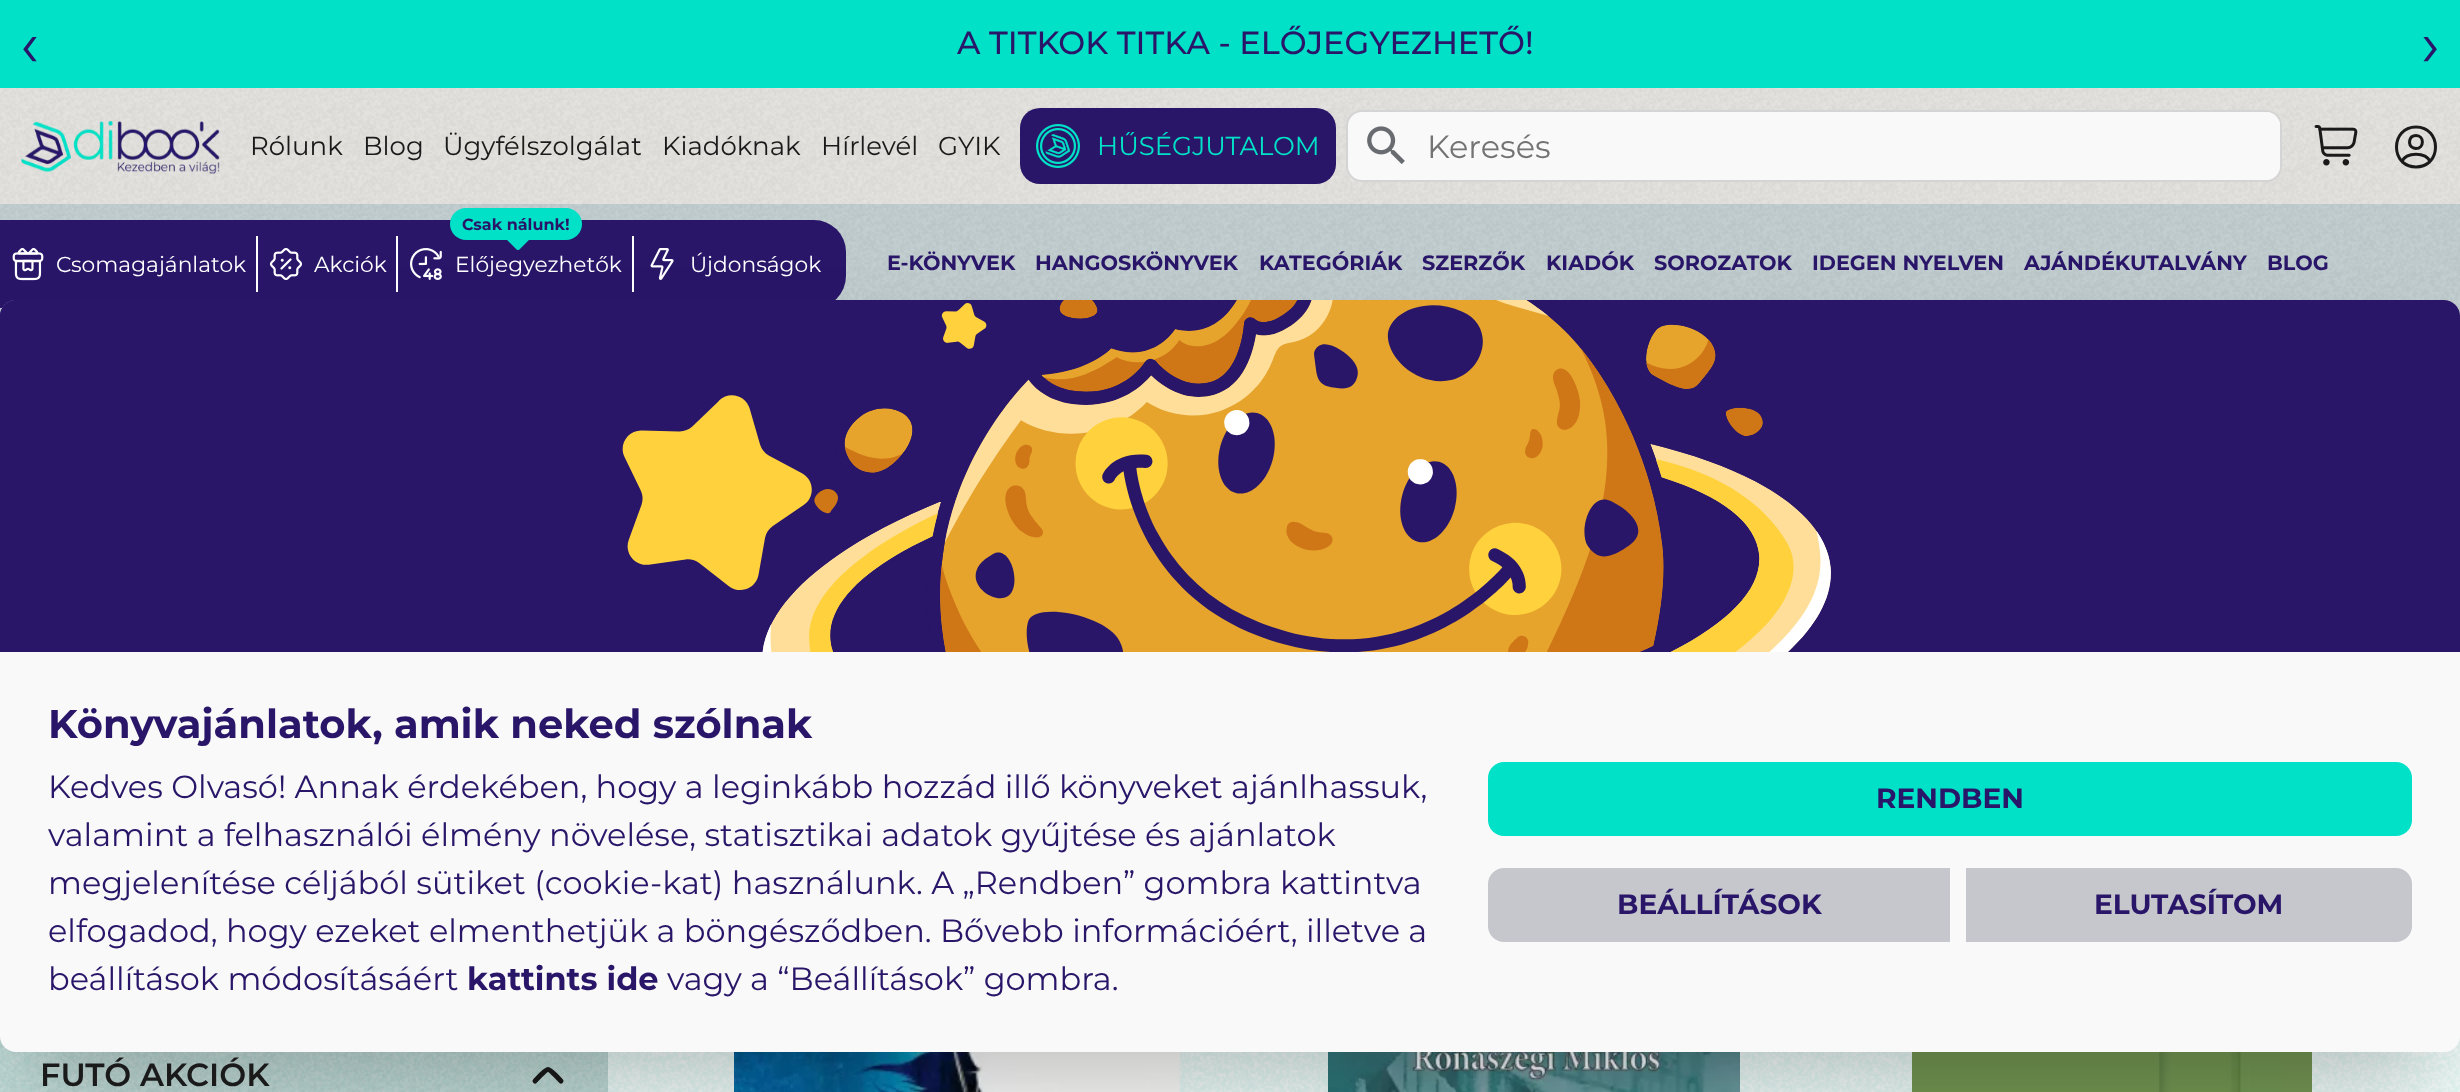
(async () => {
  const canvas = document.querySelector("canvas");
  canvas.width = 2460;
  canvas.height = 1092;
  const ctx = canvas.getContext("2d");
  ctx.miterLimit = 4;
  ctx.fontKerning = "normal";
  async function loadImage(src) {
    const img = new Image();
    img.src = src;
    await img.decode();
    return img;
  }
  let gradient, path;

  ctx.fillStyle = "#ffffff";
  ctx.fillRect(0, 0, 2460, 1092);
  ctx.fillStyle = "#00e1c7";
  ctx.fillRect(0, 0, 2460, 88);
  ctx.fillStyle = "#fffef8";
  ctx.fillRect(0, 88, 2460, 116);
  ctx.drawImage(await loadImage("img/1.png"), 0, 88, 2460, 116);
  ctx.drawImage(await loadImage("img/2.png"), 21, 121, 199, 53);
  ctx.fillStyle = "#291669";
  ctx.beginPath();
  ctx.roundRect(1020, 108, 316, 76, 20);
  ctx.fill();
  ctx.drawImage(await loadImage("img/3.png"), 1036, 124, 44, 44);
  ctx.fillStyle = "#f9f9f9";
  ctx.beginPath();
  ctx.roundRect(1347, 111, 934, 70, 15);
  ctx.fill();
  ctx.strokeStyle = "#d4d4d4";
  ctx.lineWidth = 2;
  ctx.stroke();
  ctx.drawImage(await loadImage("img/4.png"), 1367, 126, 38, 38);
  ctx.beginPath();
  ctx.roundRect(1428, 112, 852, 68, [0, 14, 14, 0]);
  ctx.fill();
  ctx.drawImage(await loadImage("img/5.png"), 2314, 125, 44, 41);
  path = new Path2D("M2416 148.5L2413.5 148C2407 145 2409 135.5 2416 135.5C2424.5 135.5 2424.5 148.5 2416 148.5ZM2429.5 162C2422 168.5 2410 168.5 2402.5 162C2403.5 151.5 2428.5 151.5 2429.5 162ZM2416 167C2442 167 2442 127 2416 127C2390 127 2390 167 2416 167Z");
  ctx.strokeStyle = "#1a1a1a";
  ctx.lineWidth = 3;
  ctx.lineCap = "round";
  ctx.lineJoin = "round";
  ctx.stroke(path);
  ctx.fillStyle = "#d3e3e6";
  ctx.fillRect(0, 204, 2460, 112);
  ctx.drawImage(await loadImage("img/6.png"), 0, 204, 2460, 112);
  ctx.fillStyle = "#291669";
  ctx.beginPath();
  ctx.roundRect(0, 220, 846, 88, [0, 32, 32, 0]);
  ctx.fill();
  ctx.fillStyle = "#ffffff";
  ctx.fillRect(256, 236, 2, 56);
  ctx.drawImage(await loadImage("img/7.png"), 12, 247, 32, 34);
  ctx.fillRect(396, 236, 2, 56);
  ctx.drawImage(await loadImage("img/8.png"), 269, 248, 33, 33);
  ctx.fillRect(632, 236, 2, 56);
  ctx.fillStyle = "#00e1c7";
  ctx.beginPath();
  ctx.roundRect(450, 208, 132, 32, 16);
  ctx.fill();
  ctx.drawImage(await loadImage("img/9.png"), 507, 240, 22, 10);
  ctx.drawImage(await loadImage("img/10.png"), 410, 248, 32, 32);
  ctx.drawImage(await loadImage("img/11.png"), 650, 248, 24, 32);
  ctx.drawImage(await loadImage("img/13.png"), 0, 1036, 2460, 56);
  ctx.fillStyle = "rgba(0, 225, 199, 0.1)";
  ctx.fillRect(0, 1036, 608, 56);
  ctx.drawImage(await loadImage("img/14.png"), 0, 1036, 608, 56);
  path = new Path2D("M535 1081C550.5 1065.5 545.5 1065.5 561 1081");
  ctx.lineWidth = 5;
  ctx.stroke(path);
  ctx.drawImage(await loadImage("img/15.png"), 734, 1052, 446, 40);
  ctx.drawImage(await loadImage("img/16.png"), 1328, 1052, 412, 40);
  ctx.drawImage(await loadImage("img/17.png"), 1912, 1052, 400, 40);
  ctx.fillStyle = "rgba(0, 0, 0, 0.25)";
  ctx.filter = "blur(50px)";
  ctx.beginPath();
  ctx.rect(24, 374, 2412, 704);
  ctx.fill();
  ctx.filter = "none";
  ctx.fillStyle = "#f9f9f9";
  ctx.beginPath();
  ctx.roundRect(0, 300, 2460, 752, 16);
  ctx.fill();
  ctx.fillStyle = "#291669";
  ctx.beginPath();
  ctx.roundRect(0, 300, 2460, 352, [16, 16, 0, 0]);
  ctx.fill();
  gradient = ctx.createLinearGradient(0, 476, 2460, 476);
  gradient.addColorStop(0, "#291669");
  gradient.addColorStop(0.88, "#291669");
  gradient.addColorStop(0.88, "rgba(41, 22, 105, 0)");
  gradient.addColorStop(1, "rgba(255, 255, 255, 0)");
  ctx.fillStyle = gradient;
  ctx.beginPath();
  ctx.roundRect(0, 300, 2460, 352, [16, 16, 0, 0]);
  ctx.fill();
  ctx.drawImage(await loadImage("img/12.png"), 622, 300, 1209, 352);
  ctx.fillStyle = "#00e1c7";
  ctx.beginPath();
  ctx.roundRect(1488, 762, 924, 74, 16);
  ctx.fill();
  ctx.fillStyle = "#c5c7cd";
  ctx.beginPath();
  ctx.roundRect(1488, 868, 462, 74, [16, 0, 0, 16]);
  ctx.fill();
  ctx.beginPath();
  ctx.roundRect(1966, 868, 446, 74, [0, 16, 16, 0]);
  ctx.fill();
  ctx.font = "64px Montserrat";
  ctx.fillStyle = "#291669";
  ctx.fillText("‹", 20, 66);
  ctx.font = "500 32px Montserrat";
  ctx.fillText("A TITKOK TITKA - ELŐJEGYEZHETŐ!", 957, 54);
  ctx.font = "64px Montserrat";
  ctx.fillText("›", 2421, 66);
  ctx.font = "26px Montserrat";
  ctx.fillStyle = "#1a1a1a";
  for (const [text, x, y] of [
    ["Rólunk", 250, 155],
    ["Blog", 363, 155],
    ["Ügyfélszolgálat", 443, 155],
    ["Kiadóknak", 662, 155],
    ["Hírlevél", 821, 155],
    ["GYIK", 938, 155],
  ]) {
    ctx.fillText(text, x, y);
  }
  ctx.fillStyle = "#00e1c7";
  ctx.fillText("HŰSÉGJUTALOM", 1097, 155);
  ctx.font = "32px Montserrat";
  ctx.fillStyle = "#737373";
  ctx.fillText("Keresés", 1427, 158);
  ctx.font = "21.75px Montserrat";
  ctx.fillStyle = "#ffffff";
  ctx.fillText("Csomagajánlatok", 56, 272);
  ctx.fillText("Akciók", 314, 272);
  ctx.font = "bold 16px Montserrat";
  ctx.fillStyle = "#291669";
  ctx.fillText("Csak nálunk!", 462, 230);
  ctx.font = "21.75px Montserrat";
  ctx.fillStyle = "#ffffff";
  ctx.fillText("Előjegyezhetők", 455, 272);
  ctx.fillText("Újdonságok", 690, 272);
  ctx.font = "bold 20.75px Montserrat";
  ctx.fillStyle = "#291669";
  for (const [text, x, y] of [
    ["E-KÖNYVEK", 887, 270],
    ["HANGOSKÖNYVEK", 1035, 270],
    ["KATEGÓRIÁK", 1259, 270],
    ["SZERZŐK", 1422, 270],
    ["KIADÓK", 1546, 270],
    ["SOROZATOK", 1654, 270],
    ["IDEGEN NYELVEN", 1812, 270],
    ["AJÁNDÉKUTALVÁNY", 2024, 270],
    ["BLOG", 2267, 270],
  ]) {
    ctx.fillText(text, x, y);
  }
  ctx.font = "bold 40px Montserrat";
  ctx.fillText("Könyvajánlatok, amik neked szólnak", 48, 738);
  ctx.font = "32px Montserrat";
  for (const [text, x, y] of [
    ["Kedves Olvasó! Annak érdekében, hogy a leginkább hozzád illő könyveket ajánlhassuk,", 48, 798],
    ["valamint a felhasználói élmény növelése, statisztikai adatok gyűjtése és ajánlatok", 48, 846],
    ["megjelenítése céljából sütiket (cookie-kat) használunk. A „Rendben” gombra kattintva", 48, 894],
    ["elfogadod, hogy ezeket elmenthetjük a böngésződben. Bővebb információért, illetve a", 48, 942],
    ["beállítások módosításáért", 48, 990],
  ]) {
    ctx.fillText(text, x, y);
  }
  ctx.font = "bold 32px Montserrat";
  ctx.fillText("kattints ide", 467, 990);
  ctx.font = "32px Montserrat";
  ctx.fillText("vagy a “Beállítások” gombra.", 667, 990);
  ctx.font = "bold 28px Montserrat";
  for (const [text, x, y] of [
    ["RENDBEN", 1876, 808],
    ["BEÁLLÍTÁSOK", 1617, 914],
    ["ELUTASÍTOM", 2094, 914],
  ]) {
    ctx.fillText(text, x, y);
  }
  ctx.font = "600 32px Montserrat";
  ctx.fillStyle = "#1a1a1a";
  ctx.fillText("FUTÓ AKCIÓK", 40, 1086);
})();
